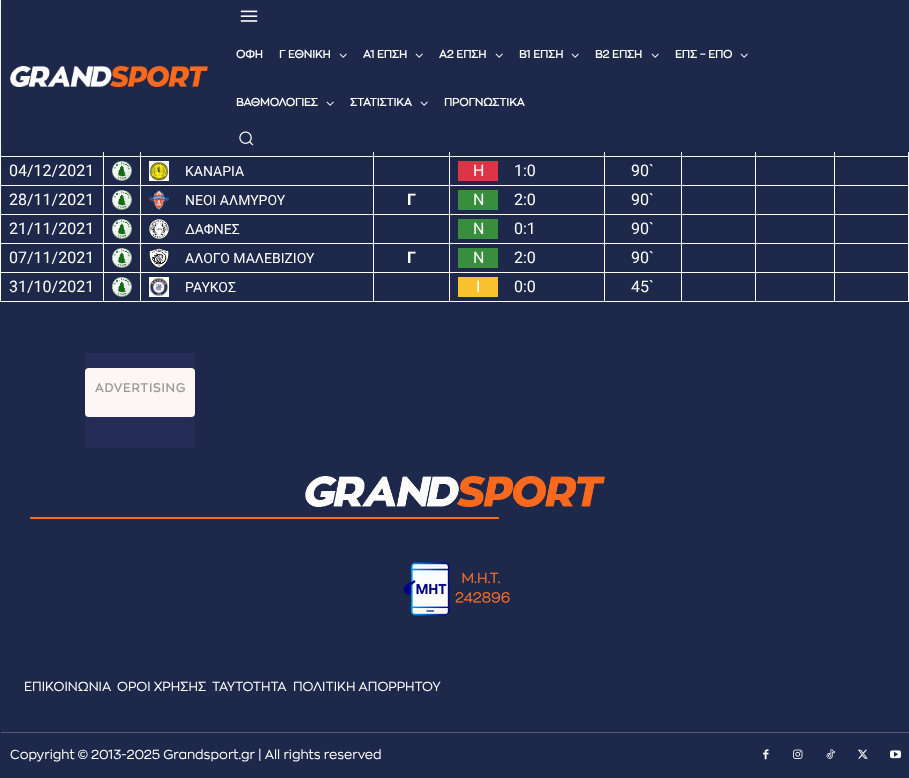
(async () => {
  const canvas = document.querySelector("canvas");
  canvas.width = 909;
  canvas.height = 778;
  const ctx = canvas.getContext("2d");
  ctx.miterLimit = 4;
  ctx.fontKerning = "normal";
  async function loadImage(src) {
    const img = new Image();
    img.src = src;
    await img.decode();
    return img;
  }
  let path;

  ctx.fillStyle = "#1e284a";
  ctx.fillRect(0, 0, 909, 778);
  ctx.drawImage(await loadImage("img/1.png"), 10, 66, 198, 21);
  ctx.drawImage(await loadImage("img/2.png"), 240, 10, 18, 12);
  for (const [x, y, w, h, color] of [
    [0, 0, 1, 302, "#ffffff"],
    [103, 152, 1, 150, "#ffffff"],
    [1, 156, 103, 1, "#ffffff"],
    [140, 152, 1, 150, "#ffffff"],
    [104, 156, 37, 1, "#ffffff"],
    [373, 152, 1, 150, "#ffffff"],
    [141, 156, 233, 1, "#ffffff"],
    [449, 152, 1, 150, "#ffffff"],
    [374, 156, 76, 1, "#ffffff"],
    [604, 152, 1, 150, "#ffffff"],
    [450, 156, 155, 1, "#ffffff"],
    [681, 152, 1, 150, "#ffffff"],
    [605, 156, 77, 1, "#ffffff"],
    [755, 152, 1, 150, "#ffffff"],
    [682, 156, 74, 1, "#ffffff"],
    [834, 152, 1, 150, "#ffffff"],
    [756, 156, 79, 1, "#ffffff"],
    [908, 152, 1, 150, "#ffffff"],
    [835, 156, 74, 1, "#ffffff"],
  ]) {
    ctx.fillStyle = color;
    ctx.fillRect(x, y, w, h);
  }
  ctx.drawImage(await loadImage("img/5.png"), 112, 161, 20, 20);
  ctx.drawImage(await loadImage("img/6.png"), 149, 161, 20, 20);
  ctx.fillStyle = "#dc3545";
  ctx.fillRect(458, 161, 40, 20);
  ctx.save();
  path = new Path2D("M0 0H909V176H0ZM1 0H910V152H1Z");
  ctx.clip(path, "evenodd");
  ctx.fillStyle = "rgba(0, 0, 0, 0.12)";
  ctx.filter = "blur(7.5px)";
  ctx.beginPath();
  ctx.rect(1, 0, 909, 152);
  ctx.fill();
  ctx.filter = "none";
  ctx.restore();
  ctx.drawImage(await loadImage("img/3.png"), 339, 53, 8, 5);
  ctx.drawImage(await loadImage("img/3.png"), 415, 53, 8, 5);
  ctx.drawImage(await loadImage("img/3.png"), 495, 53, 8, 5);
  ctx.drawImage(await loadImage("img/3.png"), 571, 53, 8, 5);
  ctx.drawImage(await loadImage("img/3.png"), 651, 53, 8, 5);
  ctx.drawImage(await loadImage("img/3.png"), 740, 53, 8, 5);
  ctx.drawImage(await loadImage("img/3.png"), 326, 101, 8, 5);
  ctx.drawImage(await loadImage("img/3.png"), 420, 101, 8, 5);
  ctx.drawImage(await loadImage("img/4.png"), 239, 131, 15, 15);
  for (const [x, y, w, h, color] of [
    [1, 185, 140, 1, "#ffffff"],
    [141, 185, 233, 1, "#ffffff"],
    [374, 185, 535, 1, "#ffffff"],
    [1, 214, 140, 1, "#ffffff"],
  ]) {
    ctx.fillStyle = color;
    ctx.fillRect(x, y, w, h);
  }
  ctx.drawImage(await loadImage("img/5.png"), 112, 190, 20, 20);
  ctx.fillRect(141, 214, 233, 1);
  ctx.drawImage(await loadImage("img/7.png"), 149, 190, 20, 20);
  for (const [x, y, w, h, color] of [
    [374, 214, 535, 1, "#ffffff"],
    [458, 190, 40, 20, "#388e3c"],
    [1, 243, 140, 1, "#ffffff"],
  ]) {
    ctx.fillStyle = color;
    ctx.fillRect(x, y, w, h);
  }
  ctx.drawImage(await loadImage("img/5.png"), 112, 219, 20, 20);
  ctx.fillRect(141, 243, 233, 1);
  ctx.drawImage(await loadImage("img/8.png"), 149, 219, 20, 20);
  for (const [x, y, w, h, color] of [
    [458, 219, 40, 20, "#388e3c"],
    [374, 243, 535, 1, "#ffffff"],
    [1, 272, 140, 1, "#ffffff"],
  ]) {
    ctx.fillStyle = color;
    ctx.fillRect(x, y, w, h);
  }
  ctx.drawImage(await loadImage("img/5.png"), 112, 248, 20, 20);
  ctx.fillRect(141, 272, 233, 1);
  ctx.drawImage(await loadImage("img/9.png"), 149, 248, 20, 20);
  for (const [x, y, w, h, color] of [
    [374, 272, 535, 1, "#ffffff"],
    [458, 248, 40, 20, "#388e3c"],
    [1, 301, 140, 1, "#ffffff"],
  ]) {
    ctx.fillStyle = color;
    ctx.fillRect(x, y, w, h);
  }
  ctx.drawImage(await loadImage("img/5.png"), 112, 277, 20, 20);
  ctx.fillRect(141, 301, 233, 1);
  ctx.drawImage(await loadImage("img/10.png"), 149, 277, 20, 20);
  for (const [x, y, w, h, color] of [
    [458, 277, 40, 20, "#fbc02d"],
    [374, 301, 535, 1, "#ffffff"],
    [85, 353, 110, 95, "#252d56"],
  ]) {
    ctx.fillStyle = color;
    ctx.fillRect(x, y, w, h);
  }
  ctx.fillStyle = "#fcf7f5";
  ctx.beginPath();
  ctx.roundRect(85, 368, 110, 49, 4);
  ctx.fill();
  ctx.drawImage(await loadImage("img/11.png"), 305, 476, 300, 31);
  ctx.fillStyle = "#fb691e";
  ctx.fillRect(30, 517, 469, 2);
  ctx.drawImage(await loadImage("img/12.png"), 403, 562, 107, 54);
  ctx.fillStyle = "#565e77";
  ctx.fillRect(1, 732, 908, 1);
  ctx.drawImage(await loadImage("img/13.png"), 763, 749, 6, 11);
  ctx.drawImage(await loadImage("img/14.png"), 793, 749, 10, 10);
  ctx.drawImage(await loadImage("img/15.png"), 826, 749, 9, 10);
  ctx.drawImage(await loadImage("img/16.png"), 858, 749, 10, 10);
  ctx.drawImage(await loadImage("img/17.png"), 890, 750, 11, 9);
  ctx.font = "bold 11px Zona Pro";
  ctx.fillStyle = "#ffffff";
  for (const [text, x, y] of [
    ["ΟΦΗ", 236, 58],
    ["Γ ΕΘΝΙΚΗ", 279, 58],
    ["Α1 ΕΠΣΗ", 363, 58],
    ["Α2 ΕΠΣΗ", 439, 58],
    ["Β1 ΕΠΣΗ", 519, 58],
    ["Β2 ΕΠΣΗ", 595, 58],
    ["ΕΠΣ – ΕΠΟ", 675, 58],
    ["ΒΑΘΜΟΛΟΓΙΕΣ", 236, 106],
    ["ΣΤΑΤΙΣΤΙΚΑ", 350, 106],
    ["ΠΡΟΓΝΩΣΤΙΚΑ", 444, 106],
  ]) {
    ctx.fillText(text, x, y);
  }
  ctx.font = "16px Roboto";
  ctx.fillText("04/12/2021", 9, 176);
  ctx.font = "14px Roboto";
  ctx.fillText("ΚΑΝΑΡΙΑ", 185, 176);
  ctx.font = "16px Roboto";
  for (const [text, x, y] of [
    ["Η", 473, 176],
    ["1:0", 514, 176],
    ["90`", 631, 176],
    ["28/11/2021", 9, 205],
  ]) {
    ctx.fillText(text, x, y);
  }
  ctx.font = "14px Roboto";
  ctx.fillText("ΝΕΟΙ ΑΛΜΥΡΟΥ", 185, 205);
  ctx.font = "bold 16px Roboto";
  ctx.fillText("Γ", 407, 205);
  ctx.font = "16px Roboto";
  for (const [text, x, y] of [
    ["Ν", 473, 205],
    ["2:0", 514, 205],
    ["90`", 631, 205],
    ["21/11/2021", 9, 234],
  ]) {
    ctx.fillText(text, x, y);
  }
  ctx.font = "14px Roboto";
  ctx.fillText("ΔΑΦΝΕΣ", 185, 234);
  ctx.font = "16px Roboto";
  for (const [text, x, y] of [
    ["Ν", 473, 234],
    ["0:1", 514, 234],
    ["90`", 631, 234],
    ["07/11/2021", 9, 263],
  ]) {
    ctx.fillText(text, x, y);
  }
  ctx.font = "14px Roboto";
  ctx.fillText("ΑΛΟΓΟ ΜΑΛΕΒΙΖΙΟΥ", 185, 263);
  ctx.font = "bold 16px Roboto";
  ctx.fillText("Γ", 407, 263);
  ctx.font = "16px Roboto";
  for (const [text, x, y] of [
    ["Ν", 473, 263],
    ["2:0", 514, 263],
    ["90`", 631, 263],
    ["31/10/2021", 9, 292],
  ]) {
    ctx.fillText(text, x, y);
  }
  ctx.font = "14px Roboto";
  ctx.fillText("ΡΑΥΚΟΣ", 185, 292);
  ctx.font = "16px Roboto";
  for (const [text, x, y] of [
    ["Ι", 476, 292],
    ["0:0", 514, 292],
    ["45`", 631, 292],
  ]) {
    ctx.fillText(text, x, y);
  }
  ctx.letterSpacing = "1px";
  ctx.font = "bold 12px Zona Pro";
  ctx.fillStyle = "#999999";
  ctx.fillText("ADVERTISING", 95, 392);
  ctx.letterSpacing = "0px";
  ctx.font = "13px Zona Pro";
  ctx.fillStyle = "#ffffff";
  for (const [text, x, y] of [
    ["ΕΠΙΚΟΙΝΩΝΙΑ", 24, 691],
    ["ΟΡΟΙ ΧΡΗΣΗΣ", 117, 691],
    ["ΤΑΥΤΟΤΗΤΑ", 212, 691],
    ["ΠΟΛΙΤΙΚΗ ΑΠΟΡΡΗΤΟΥ", 293, 691],
    ["Copyright © 2013-2025 Grandsport.gr | All rights reserved", 10, 759],
  ]) {
    ctx.fillText(text, x, y);
  }
})();
